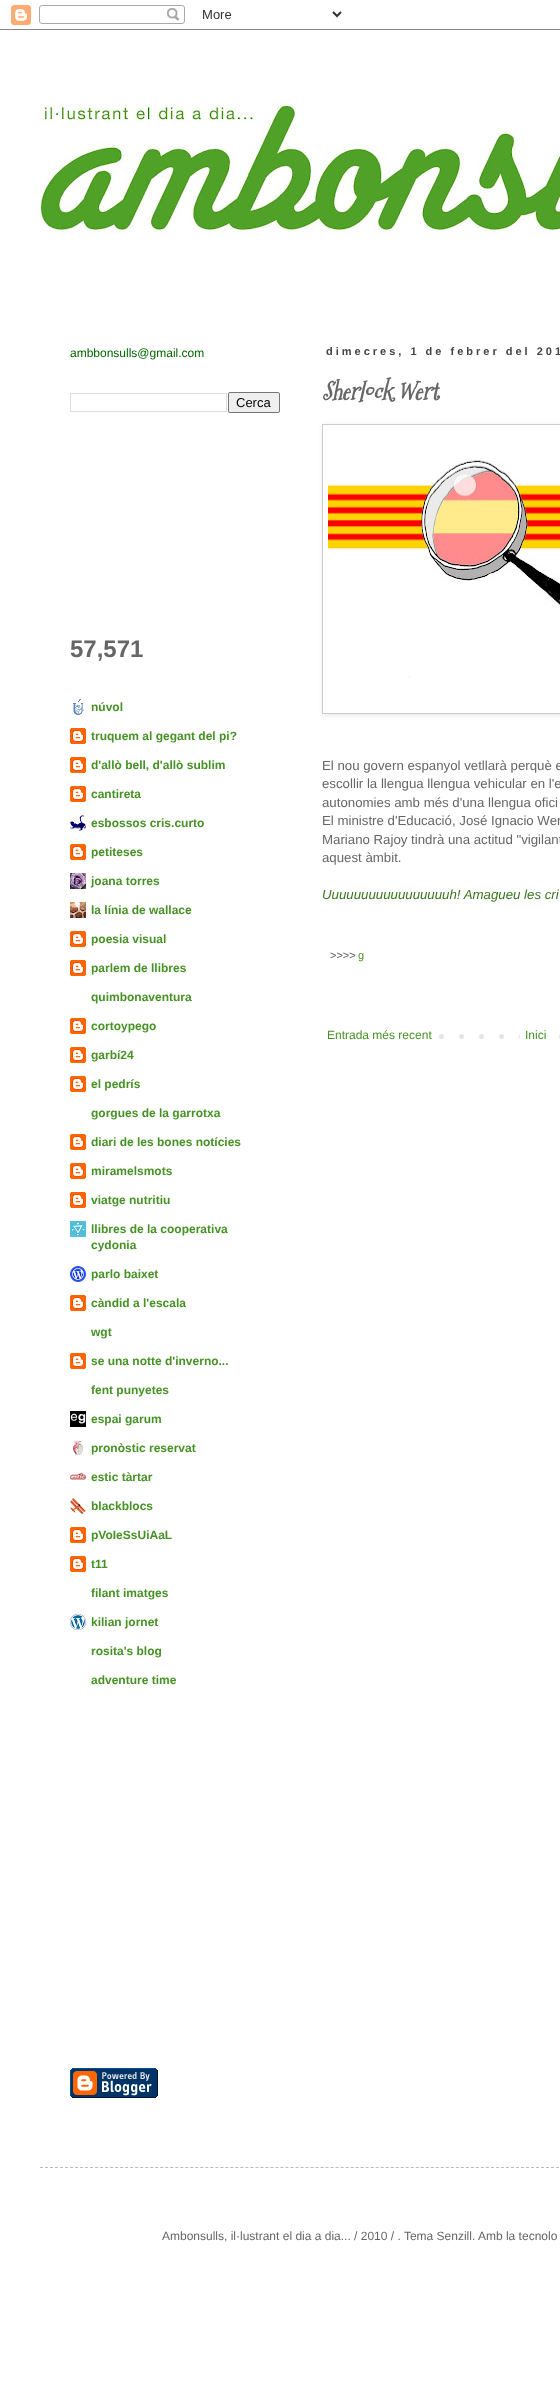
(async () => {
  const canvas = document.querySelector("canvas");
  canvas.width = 560;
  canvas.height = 2384;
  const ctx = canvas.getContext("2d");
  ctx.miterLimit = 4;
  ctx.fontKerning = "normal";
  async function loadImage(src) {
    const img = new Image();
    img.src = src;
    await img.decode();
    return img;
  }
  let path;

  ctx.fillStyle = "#ffffff";
  ctx.fillRect(0, 0, 560, 2384);
  ctx.drawImage(await loadImage("img/1.png"), 0, 5, 560, 25);
  ctx.drawImage(await loadImage("img/2.png"), 40, 104, 520, 130);
  ctx.strokeStyle = "#dddddd";
  ctx.strokeRect(70.5, 393.5, 156, 18);
  ctx.fillStyle = "#efefef";
  ctx.beginPath();
  ctx.roundRect(228.5, 392.5, 51, 20, 1.5);
  ctx.fill();
  ctx.strokeStyle = "#767676";
  ctx.stroke();
  ctx.drawImage(await loadImage("img/3.png"), 73, 699, 11, 16);
  ctx.drawImage(await loadImage("img/4.png"), 70, 728, 16, 16);
  ctx.drawImage(await loadImage("img/4.png"), 70, 757, 16, 16);
  ctx.drawImage(await loadImage("img/4.png"), 70, 786, 16, 16);
  ctx.drawImage(await loadImage("img/5.png"), 70, 815, 16, 16);
  ctx.drawImage(await loadImage("img/4.png"), 70, 844, 16, 16);
  ctx.drawImage(await loadImage("img/6.png"), 70, 873, 16, 16);
  ctx.drawImage(await loadImage("img/7.png"), 70, 902, 16, 16);
  ctx.drawImage(await loadImage("img/4.png"), 70, 931, 16, 16);
  ctx.drawImage(await loadImage("img/4.png"), 70, 960, 16, 16);
  ctx.drawImage(await loadImage("img/4.png"), 70, 1018, 16, 16);
  ctx.drawImage(await loadImage("img/4.png"), 70, 1047, 16, 16);
  ctx.drawImage(await loadImage("img/4.png"), 70, 1076, 16, 16);
  ctx.drawImage(await loadImage("img/4.png"), 70, 1134, 16, 16);
  ctx.drawImage(await loadImage("img/4.png"), 70, 1163, 16, 16);
  ctx.drawImage(await loadImage("img/4.png"), 70, 1192, 16, 16);
  ctx.drawImage(await loadImage("img/8.png"), 70, 1221, 16, 16);
  ctx.drawImage(await loadImage("img/9.png"), 70, 1266, 16, 16);
  ctx.drawImage(await loadImage("img/4.png"), 70, 1295, 16, 16);
  ctx.drawImage(await loadImage("img/4.png"), 70, 1353, 16, 16);
  ctx.drawImage(await loadImage("img/10.png"), 70, 1411, 16, 16);
  ctx.drawImage(await loadImage("img/11.png"), 73, 1440, 11, 16);
  ctx.drawImage(await loadImage("img/12.png"), 70, 1472, 16, 8);
  ctx.drawImage(await loadImage("img/13.png"), 70, 1498, 16, 16);
  ctx.drawImage(await loadImage("img/4.png"), 70, 1527, 16, 16);
  ctx.drawImage(await loadImage("img/4.png"), 70, 1556, 16, 16);
  ctx.drawImage(await loadImage("img/14.png"), 70, 1614, 16, 16);
  ctx.drawImage(await loadImage("img/15.png"), 70, 2068, 88, 30);
  ctx.save();
  path = new Path2D("M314 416H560V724H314ZM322 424H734V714H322Z");
  ctx.clip(path, "evenodd");
  ctx.fillStyle = "rgba(0, 0, 0, 0.1)";
  ctx.filter = "blur(2.5px)";
  ctx.beginPath();
  ctx.rect(323, 425, 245, 290);
  ctx.fill();
  ctx.filter = "none";
  ctx.restore();
  ctx.strokeStyle = "#cccccc";
  ctx.strokeRect(322.5, 424.5, 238, 289);
  ctx.drawImage(await loadImage("img/16.png"), 328, 460, 232, 218);
  ctx.drawImage(await loadImage("img/17.png"), 439, 1034, 121, 5);
  ctx.fillStyle = "#ffffff";
  ctx.fillRect(520, 1034, 25, 5);
  path = new Path2D("M40 2167.5H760");
  ctx.strokeStyle = "#bbbbbb";
  ctx.setLineDash([3, 2.01]);
  ctx.stroke(path);
  ctx.font = "12px Liberation Sans";
  ctx.fillStyle = "#006600";
  ctx.fillText("ambbonsulls@gmail.com", 70, 357);
  ctx.font = "13px Liberation Sans";
  ctx.fillStyle = "#000000";
  ctx.fillText("Cerca", 236, 407);
  ctx.font = "bold 24px Liberation Sans";
  ctx.fillStyle = "#666666";
  ctx.fillText("57,571", 70, 657);
  ctx.font = "bold 12px Liberation Sans";
  ctx.fillStyle = "#469224";
  for (const [text, x, y] of [
    ["núvol", 91, 711],
    ["truquem al gegant del pi?", 91, 740],
    ["d'allò bell, d'allò sublim", 91, 769],
    ["cantireta", 91, 798],
    ["esbossos cris.curto", 91, 827],
    ["petiteses", 91, 856],
    ["joana torres", 91, 885],
    ["la línia de wallace", 91, 914],
    ["poesia visual", 91, 943],
    ["parlem de llibres", 91, 972],
    ["quimbonaventura", 91, 1001],
    ["cortoypego", 91, 1030],
    ["garbí24", 91, 1059],
    ["el pedrís", 91, 1088],
    ["gorgues de la garrotxa", 91, 1117],
    ["diari de les bones notícies", 91, 1146],
    ["miramelsmots", 91, 1175],
    ["viatge nutritiu", 91, 1204],
    ["llibres de la cooperativa", 91, 1233],
    ["cydonia", 91, 1249],
    ["parlo baixet", 91, 1278],
    ["càndid a l'escala", 91, 1307],
    ["wgt", 91, 1336],
    ["se una notte d'inverno...", 91, 1365],
    ["fent punyetes", 91, 1394],
    ["espai garum", 91, 1423],
    ["pronòstic reservat", 91, 1452],
    ["estic tàrtar", 91, 1481],
    ["blackblocs", 91, 1510],
    ["pVoIeSsUiAaL", 91, 1539],
    ["t11", 91, 1568],
    ["filant imatges", 91, 1597],
    ["kilian jornet", 91, 1626],
    ["rosita's blog", 91, 1655],
    ["adventure time", 91, 1684],
  ]) {
    ctx.fillText(text, x, y);
  }
  ctx.letterSpacing = "3px";
  ctx.font = "bold 11px Liberation Sans";
  ctx.fillStyle = "#444444";
  ctx.fillText("dimecres, 1 de febrer del 201", 326, 355);
  ctx.letterSpacing = "0px";
  ctx.font = "italic bold 24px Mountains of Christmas";
  ctx.fillStyle = "#666666";
  ctx.fillText("Sherlock Wert", 322, 400);
  ctx.font = "13.25px Liberation Sans";
  for (const [text, x, y] of [
    ["El nou govern espanyol vetllarà perquè e", 322, 770],
    ["escollir la llengua llengua vehicular en l'e", 322, 788],
    ["autonomies amb més d'una llengua ofici", 322, 807],
    ["El ministre d'Educació, José Ignacio Wer", 322, 825],
    ["Mariano Rajoy tindrà una actitud \"vigilant", 322, 844],
    ["aquest àmbit.", 322, 862],
  ]) {
    ctx.fillText(text, x, y);
  }
  ctx.font = "italic 13.25px Liberation Sans";
  ctx.fillStyle = "#38761d";
  ctx.fillText("Uuuuuuuuuuuuuuuuuh! Amagueu les cri", 322, 899);
  ctx.font = "11px Liberation Sans";
  ctx.fillStyle = "#666666";
  ctx.fillText(">>>>", 330, 959);
  ctx.fillStyle = "#469224";
  ctx.fillText("g", 358, 959);
  ctx.font = "12px Liberation Sans";
  ctx.fillText("Entrada més recent", 327, 1039);
  ctx.fillText("Inici", 525, 1039);
  ctx.fillStyle = "#666666";
  ctx.fillText("Ambonsulls, il·lustrant el dia a dia... / 2010 / . Tema Senzill. Amb la tecnolo", 162, 2240);
})();
